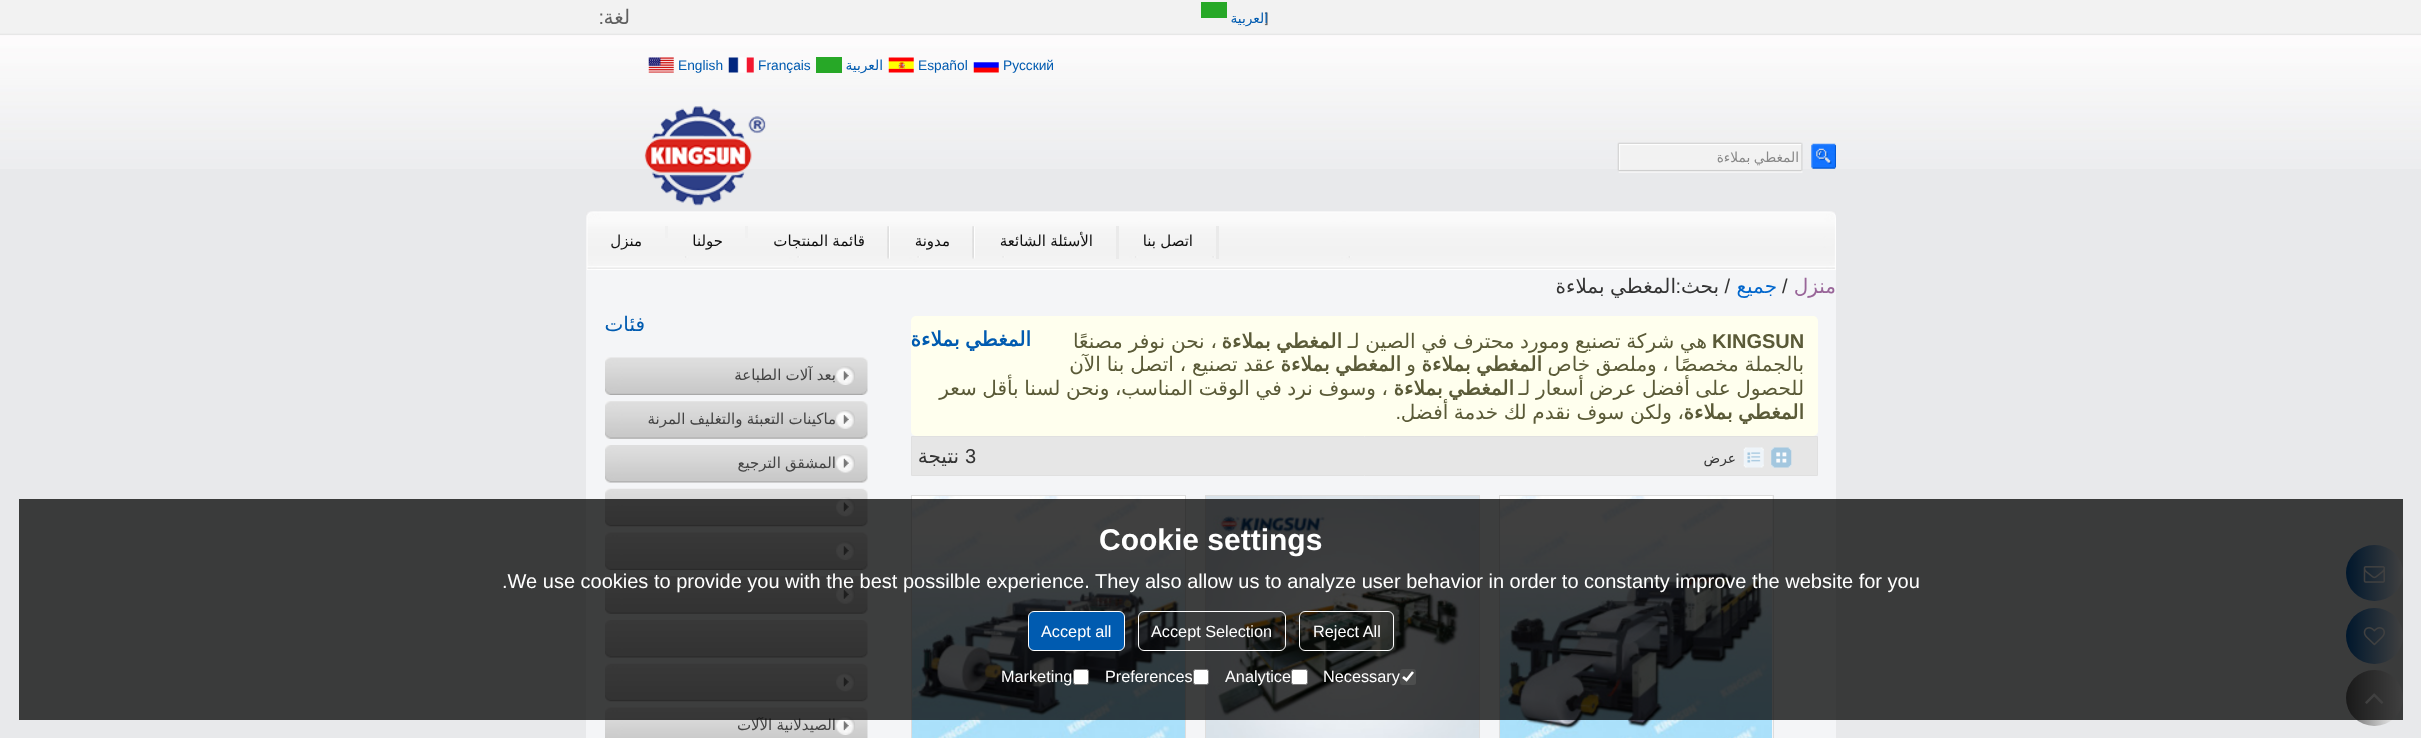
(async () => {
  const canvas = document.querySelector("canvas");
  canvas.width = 2421;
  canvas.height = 738;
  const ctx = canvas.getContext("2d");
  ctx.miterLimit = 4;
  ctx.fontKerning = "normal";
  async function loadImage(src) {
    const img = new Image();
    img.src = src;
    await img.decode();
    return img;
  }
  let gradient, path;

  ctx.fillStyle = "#e8e9eb";
  ctx.fillRect(0, 0, 2421, 738);
  ctx.drawImage(await loadImage("img/1.png"), 0, 0, 2421, 169);
  ctx.drawImage(await loadImage("img/2.png"), 1264, 12, 4, 14);
  ctx.fillStyle = "#27a827";
  ctx.fillRect(1201, 2, 26, 16);
  ctx.drawImage(await loadImage("img/3.png"), 973, 62, 26, 11);
  ctx.drawImage(await loadImage("img/4.png"), 888, 57, 26, 16);
  ctx.fillRect(816, 57, 26, 16);
  ctx.drawImage(await loadImage("img/5.png"), 728, 57, 26, 16);
  ctx.drawImage(await loadImage("img/6.png"), 648, 57, 26, 16);
  ctx.drawImage(await loadImage("img/7.png"), 1811, 143, 25, 26);
  ctx.drawImage(await loadImage("img/8.png"), 1617, 142, 186, 31);
  ctx.drawImage(await loadImage("img/9.png"), 644, 106, 122, 100);
  ctx.drawImage(await loadImage("img/10.png"), 586, 211, 1250, 59);
  ctx.fillStyle = "#eaeaea";
  ctx.fillRect(1216, 226, 3, 33);
  ctx.fillRect(1116, 226, 3, 33);
  ctx.drawImage(await loadImage("img/11.png"), 972, 226, 3, 33);
  ctx.drawImage(await loadImage("img/11.png"), 887, 226, 3, 33);
  for (const [x, y, w, h, color] of [
    [745, 226, 3, 12, "#f1f1f1"],
    [665, 226, 3, 12, "#f1f1f1"],
    [586, 270, 1250, 468, "#f4f5f7"],
  ]) {
    ctx.fillStyle = color;
    ctx.fillRect(x, y, w, h);
  }
  ctx.fillStyle = "#ffffee";
  ctx.beginPath();
  ctx.roundRect(911, 316, 907, 120, 5);
  ctx.fill();
  ctx.fillStyle = "#e6e6e6";
  ctx.beginPath();
  ctx.rect(911.5, 436.5, 906, 39);
  ctx.fill();
  ctx.strokeStyle = "#e0e0e0";
  ctx.stroke();
  ctx.drawImage(await loadImage("img/12.png"), 1771, 447, 21, 21);
  ctx.drawImage(await loadImage("img/13.png"), 1743, 447, 21, 21);
  ctx.strokeStyle = "#dddddd";
  ctx.strokeRect(1499.5, 495.5, 274, 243);
  ctx.drawImage(await loadImage("img/14.png"), 1500, 496, 272, 242);
  ctx.strokeRect(1205.5, 495.5, 274, 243);
  ctx.drawImage(await loadImage("img/15.png"), 1206, 496, 273, 242);
  ctx.strokeRect(911.5, 495.5, 274, 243);
  ctx.drawImage(await loadImage("img/16.png"), 912, 496, 273, 242);
  ctx.drawImage(await loadImage("img/17.png"), 605, 357, 263, 38);
  ctx.drawImage(await loadImage("img/18.png"), 836, 366, 19, 19);
  ctx.drawImage(await loadImage("img/19.png"), 605, 401, 263, 38);
  ctx.drawImage(await loadImage("img/20.png"), 836, 410, 19, 19);
  ctx.drawImage(await loadImage("img/21.png"), 605, 445, 263, 38);
  ctx.drawImage(await loadImage("img/22.png"), 836, 454, 19, 19);
  ctx.drawImage(await loadImage("img/23.png"), 605, 488, 263, 39);
  ctx.drawImage(await loadImage("img/24.png"), 836, 497, 19, 20);
  ctx.drawImage(await loadImage("img/17.png"), 605, 532, 263, 38);
  ctx.drawImage(await loadImage("img/18.png"), 836, 541, 19, 19);
  ctx.drawImage(await loadImage("img/25.png"), 605, 576, 263, 38);
  ctx.drawImage(await loadImage("img/26.png"), 836, 585, 19, 19);
  ctx.drawImage(await loadImage("img/21.png"), 605, 620, 263, 38);
  ctx.drawImage(await loadImage("img/23.png"), 605, 663, 263, 39);
  ctx.drawImage(await loadImage("img/24.png"), 836, 672, 19, 20);
  ctx.drawImage(await loadImage("img/27.png"), 605, 707, 263, 31);
  ctx.drawImage(await loadImage("img/18.png"), 836, 716, 19, 19);
  gradient = ctx.createLinearGradient(2346, 573, 2403, 573);
  gradient.addColorStop(0, "#005bb0");
  gradient.addColorStop(1, "#ffffff");
  ctx.fillStyle = gradient;
  ctx.beginPath();
  ctx.roundRect(2346, 545, 57, 56, 28);
  ctx.fill();
  ctx.drawImage(await loadImage("img/28.png"), 2363, 566, 22, 17);
  gradient = ctx.createLinearGradient(2346, 636, 2403, 636);
  gradient.addColorStop(0, "#005bb0");
  gradient.addColorStop(1, "#ffffff");
  ctx.fillStyle = gradient;
  ctx.beginPath();
  ctx.roundRect(2346, 608, 57, 56, 28);
  ctx.fill();
  ctx.drawImage(await loadImage("img/29.png"), 2363, 627, 22, 19);
  gradient = ctx.createLinearGradient(2346, 698, 2403, 698);
  gradient.addColorStop(0, "#666666");
  gradient.addColorStop(1, "#ffffff");
  ctx.fillStyle = gradient;
  ctx.beginPath();
  ctx.roundRect(2346, 670, 57, 56, 28);
  ctx.fill();
  ctx.drawImage(await loadImage("img/30.png"), 2365, 693, 19, 11);
  ctx.direction = "rtl";
  ctx.font = "13.75px DejaVu Sans";
  ctx.fillStyle = "#005bb0";
  ctx.fillText("العربية", 1268, 23);
  ctx.direction = "ltr";
  ctx.font = "13.75px Liberation Sans";
  ctx.fillText("Русский", 1003, 70);
  ctx.fillText("Español", 918, 70);
  ctx.direction = "rtl";
  ctx.font = "13.75px DejaVu Sans";
  ctx.fillText("العربية", 883, 70);
  ctx.direction = "ltr";
  ctx.font = "13.75px Liberation Sans";
  ctx.fillText("Français", 758, 70);
  ctx.fillText("English", 678, 70);
  ctx.direction = "rtl";
  ctx.font = "20px DejaVu Sans";
  ctx.fillStyle = "#606060";
  ctx.fillText("لغة", 630, 24);
  ctx.font = "20px Liberation Sans";
  ctx.fillText(":", 604, 24);
  ctx.wordSpacing = "-1px";
  ctx.font = "13.75px DejaVu Sans";
  ctx.fillStyle = "#888888";
  ctx.fillText("المغطي بملاءة", 1799, 162);
  ctx.wordSpacing = "-0.5px";
  ctx.font = "15px DejaVu Sans";
  ctx.fillStyle = "#111111";
  ctx.fillText("اتصل بنا", 1193, 246);
  ctx.fillText("الأسئلة الشائعة", 1093, 246);
  ctx.wordSpacing = "0px";
  ctx.fillText("مدونة", 950, 246);
  ctx.wordSpacing = "-0.5px";
  ctx.fillText("قائمة المنتجات", 865, 246);
  ctx.wordSpacing = "0px";
  ctx.fillText("حولنا", 723, 246);
  ctx.fillText("منزل", 642, 246);
  ctx.font = "20px DejaVu Sans";
  ctx.fillStyle = "#996699";
  ctx.fillText("منزل", 1836, 293);
  ctx.direction = "ltr";
  ctx.font = "20px Liberation Sans";
  ctx.fillStyle = "#333333";
  ctx.fillText("/", 1782, 293);
  ctx.direction = "rtl";
  ctx.font = "20px DejaVu Sans";
  ctx.fillStyle = "#0066cc";
  ctx.fillText("جميع", 1777, 293);
  ctx.font = "20px Liberation Sans";
  ctx.fillStyle = "#333333";
  ctx.fillText("/", 1730, 293);
  ctx.font = "20px DejaVu Sans";
  ctx.fillText("بحث", 1719, 293);
  ctx.font = "20px Liberation Sans";
  ctx.fillText(":", 1681, 293);
  ctx.wordSpacing = "-0.75px";
  ctx.font = "20px DejaVu Sans";
  ctx.fillText("المغطي بملاءة", 1676, 293);
  ctx.font = "bold 20px DejaVu Sans";
  ctx.fillStyle = "#005bb0";
  ctx.fillText("المغطي بملاءة", 1031, 346);
  ctx.wordSpacing = "0px";
  ctx.direction = "ltr";
  ctx.font = "bold 20px Liberation Sans";
  ctx.fillStyle = "#5a5a37";
  ctx.fillText("KINGSUN", 1712, 348);
  ctx.wordSpacing = "-0.75px";
  ctx.direction = "rtl";
  ctx.font = "20px DejaVu Sans";
  ctx.fillText("هي شركة تصنيع ومورد محترف في الصين لـ", 1707, 348);
  ctx.font = "bold 20px DejaVu Sans";
  ctx.fillText("المغطي بملاءة", 1342, 348);
  ctx.wordSpacing = "-0.5px";
  ctx.font = "20px DejaVu Sans";
  ctx.fillText("، نحن نوفر مصنعًا", 1217, 348);
  ctx.wordSpacing = "-0.75px";
  ctx.fillText("بالجملة مخصصًا ، وملصق خاص", 1804, 371);
  ctx.font = "bold 20px DejaVu Sans";
  ctx.fillText("المغطي بملاءة", 1542, 371);
  ctx.wordSpacing = "0px";
  ctx.font = "20px DejaVu Sans";
  ctx.fillText("و", 1416, 371);
  ctx.wordSpacing = "-0.75px";
  ctx.font = "bold 20px DejaVu Sans";
  ctx.fillText("المغطي بملاءة", 1401, 371);
  ctx.wordSpacing = "-0.5px";
  ctx.font = "20px DejaVu Sans";
  ctx.fillText("عقد تصنيع ، اتصل بنا الآن", 1276, 371);
  ctx.wordSpacing = "-0.75px";
  ctx.fillText("للحصول على أفضل عرض أسعار لـ", 1804, 395);
  ctx.font = "bold 20px DejaVu Sans";
  ctx.fillText("المغطي بملاءة", 1514, 395);
  ctx.font = "20px DejaVu Sans";
  ctx.fillText("، وسوف نرد في الوقت المناسب، ونحن لسنا بأقل سعر", 1388, 395);
  ctx.font = "bold 20px DejaVu Sans";
  ctx.fillText("المغطي بملاءة", 1804, 419);
  ctx.font = "20px DejaVu Sans";
  ctx.fillText("، ولكن سوف نقدم لك خدمة أفضل", 1684, 419);
  ctx.wordSpacing = "0px";
  ctx.font = "20px Liberation Sans";
  ctx.fillText(".", 1401, 419);
  ctx.font = "13.75px DejaVu Sans";
  ctx.fillStyle = "#333333";
  ctx.fillText("عرض", 1736, 463);
  ctx.direction = "ltr";
  ctx.font = "20px Liberation Sans";
  ctx.fillText("3", 965, 463);
  ctx.direction = "rtl";
  ctx.font = "20px DejaVu Sans";
  ctx.fillText("نتيجة", 959, 463);
  ctx.fillStyle = "#005bb0";
  ctx.fillText("فئات", 645, 331);
  ctx.wordSpacing = "-0.5px";
  ctx.font = "15px DejaVu Sans";
  ctx.fillStyle = "#444444";
  for (const [text, x, y] of [
    ["بعد آلات الطباعة", 836, 380],
    ["ماكينات التعبئة والتغليف المرنة", 836, 424],
    ["المشقق الترجيع", 836, 468],
    ["الصيدلانية الآلات", 836, 730],
  ]) {
    ctx.fillText(text, x, y);
  }
  ctx.fillStyle = "rgba(0, 0, 0, 0.75)";
  ctx.fillRect(19, 499, 2384, 221);
  ctx.wordSpacing = "0px";
  ctx.direction = "ltr";
  ctx.font = "bold 30px Liberation Sans";
  ctx.fillStyle = "#ffffff";
  ctx.fillText("Cookie settings", 1099, 550);
  ctx.font = "20px Liberation Sans";
  ctx.fillText(".We use cookies to provide you with the best possilble experience. They also allow us to analyze user behavior in order to constanty improve the website for you", 502, 588);
  ctx.beginPath();
  ctx.roundRect(1299.5, 611.5, 94, 39, 5.5);
  ctx.strokeStyle = "#ffffff";
  ctx.stroke();
  ctx.font = "16.25px Liberation Sans";
  ctx.fillText("Reject All", 1313, 637);
  ctx.beginPath();
  ctx.roundRect(1138.5, 611.5, 147, 39, 5.5);
  ctx.stroke();
  ctx.fillText("Accept Selection", 1151, 637);
  ctx.fillStyle = "#005bb0";
  ctx.beginPath();
  ctx.roundRect(1028.5, 611.5, 96, 39, 5.5);
  ctx.fill();
  ctx.stroke();
  ctx.fillStyle = "#ffffff";
  ctx.fillText("Accept all", 1041, 637);
  ctx.fillStyle = "#4d4e4e";
  ctx.beginPath();
  ctx.roundRect(1400, 669, 16, 16, 2.5);
  ctx.fill();
  path = new Path2D("M1403 677L1406.5 680L1413 672");
  ctx.lineWidth = 2.6;
  ctx.stroke(path);
  ctx.fillStyle = "#ffffff";
  ctx.fillText("Necessary", 1323, 682);
  ctx.beginPath();
  ctx.roundRect(1291.5, 669.5, 16, 15, 2);
  ctx.fill();
  ctx.strokeStyle = "#767676";
  ctx.lineWidth = 1;
  ctx.stroke();
  ctx.fillText("Analytice", 1225, 682);
  ctx.beginPath();
  ctx.roundRect(1193.5, 669.5, 15, 15, 2);
  ctx.fill();
  ctx.stroke();
  ctx.fillText("Preferences", 1105, 682);
  ctx.beginPath();
  ctx.roundRect(1073.5, 669.5, 15, 15, 2);
  ctx.fill();
  ctx.stroke();
  ctx.fillText("Marketing", 1001, 682);
})();
